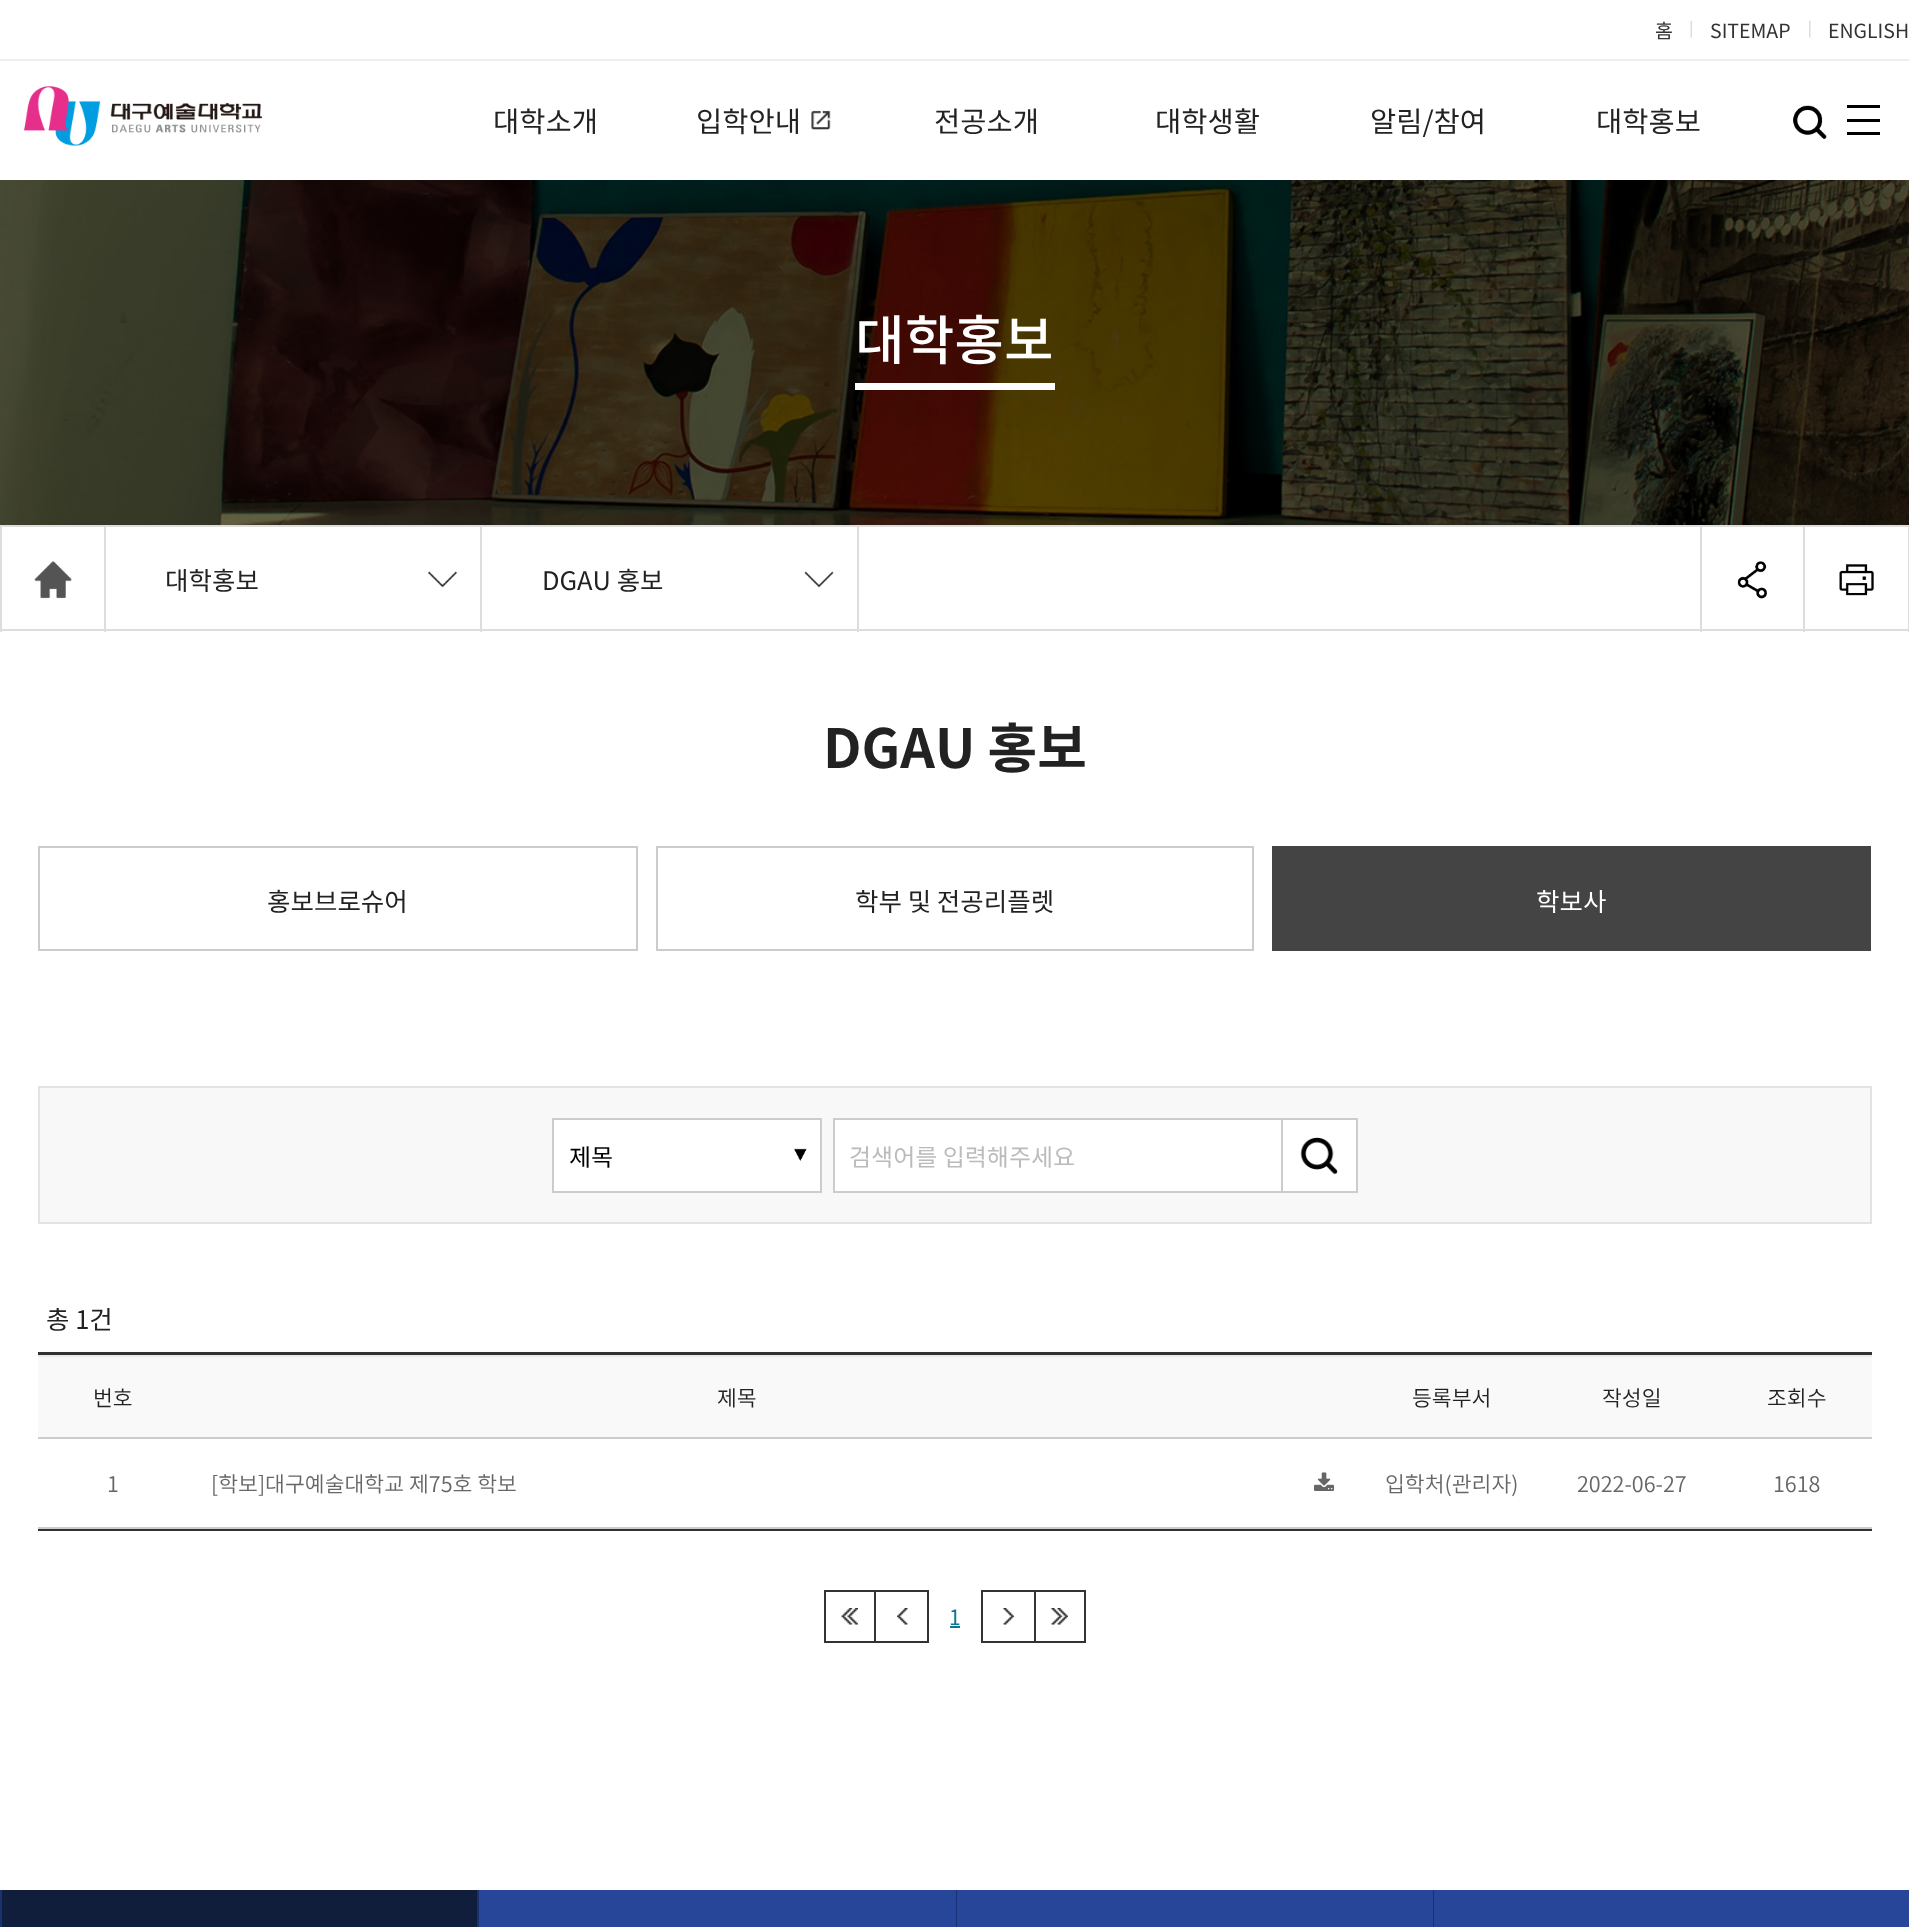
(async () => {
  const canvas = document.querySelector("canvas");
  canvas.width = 1909;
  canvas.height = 1927;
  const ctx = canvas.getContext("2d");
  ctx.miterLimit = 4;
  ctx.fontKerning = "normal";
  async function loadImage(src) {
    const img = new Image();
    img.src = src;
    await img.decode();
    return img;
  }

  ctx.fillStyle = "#ffffff";
  ctx.fillRect(0, 0, 1909, 1927);
  ctx.fillStyle = "#eeeeee";
  ctx.fillRect(0, 59, 1909, 2);
  ctx.drawImage(await loadImage("img/1.png"), 1690, 21, 2, 17);
  ctx.drawImage(await loadImage("img/2.png"), 1809, 21, 2, 17);
  ctx.drawImage(await loadImage("img/3.png"), 24, 86, 238, 60);
  ctx.drawImage(await loadImage("img/4.png"), 811, 110, 20, 20);
  ctx.drawImage(await loadImage("img/5.png"), 1793, 105, 34, 34);
  for (const [x, y, w, h, color] of [
    [1847, 105, 33, 3, "#000000"],
    [1847, 119, 33, 3, "#000000"],
    [1847, 132, 33, 3, "#000000"],
  ]) {
    ctx.fillStyle = color;
    ctx.fillRect(x, y, w, h);
  }
  ctx.drawImage(await loadImage("img/6.png"), 0, 180, 1909, 345);
  for (const [x, y, w, h, color] of [
    [855, 383, 200, 7, "#ffffff"],
    [0, 525, 1909, 2, "#dddddd"],
    [0, 629, 1909, 2, "#dddddd"],
    [104, 527, 2, 105, "#dddddd"],
    [0, 527, 2, 105, "#dddddd"],
  ]) {
    ctx.fillStyle = color;
    ctx.fillRect(x, y, w, h);
  }
  ctx.drawImage(await loadImage("img/7.png"), 34, 561, 38, 38);
  ctx.fillRect(480, 527, 2, 105);
  ctx.drawImage(await loadImage("img/8.png"), 428, 571, 29, 17);
  ctx.fillRect(857, 527, 2, 105);
  ctx.drawImage(await loadImage("img/9.png"), 804, 571, 30, 17);
  ctx.fillRect(1803, 527, 2, 105);
  ctx.fillRect(1700, 527, 2, 105);
  ctx.drawImage(await loadImage("img/10.png"), 1737, 561, 30, 38);
  ctx.fillRect(1908, 527, 1, 105);
  ctx.drawImage(await loadImage("img/11.png"), 1839, 564, 35, 32);
  ctx.strokeStyle = "#cccccc";
  ctx.lineWidth = 2;
  ctx.strokeRect(39, 847, 598, 103);
  ctx.strokeRect(657, 847, 596, 103);
  ctx.fillStyle = "#444444";
  ctx.fillRect(1272, 846, 599, 105);
  ctx.fillStyle = "#f8f8f8";
  ctx.beginPath();
  ctx.rect(39, 1087, 1832, 136);
  ctx.fill();
  ctx.strokeStyle = "#e3e3e3";
  ctx.stroke();
  ctx.fillStyle = "#ffffff";
  ctx.fillRect(554, 1120, 266, 71);
  ctx.drawImage(await loadImage("img/12.png"), 794, 1148, 13, 13);
  ctx.strokeStyle = "#cccccc";
  ctx.strokeRect(553, 1119, 268, 73);
  ctx.beginPath();
  ctx.rect(834, 1119, 448, 73);
  ctx.fill();
  ctx.stroke();
  ctx.fillRect(1283, 1120, 73, 71);
  ctx.drawImage(await loadImage("img/13.png"), 1300, 1137, 38, 38);
  for (const [x, y, w, h, color] of [
    [1283, 1118, 75, 2, "#cccccc"],
    [1356, 1118, 2, 75, "#cccccc"],
    [1283, 1191, 75, 2, "#cccccc"],
    [38, 1352, 1834, 3, "#333333"],
    [38, 1529, 1834, 2, "#333333"],
    [38, 1355, 1834, 2, "#ececec"],
    [38, 1357, 1834, 80, "#f9f9f9"],
  ]) {
    ctx.fillStyle = color;
    ctx.fillRect(x, y, w, h);
  }
  ctx.drawImage(await loadImage("img/14.png"), 1314, 1472, 21, 19);
  ctx.fillStyle = "#cccccc";
  ctx.fillRect(38, 1437, 1834, 2);
  ctx.fillRect(38, 1527, 1834, 2);
  ctx.drawImage(await loadImage("img/15.png"), 841, 1608, 17, 17);
  ctx.strokeStyle = "#333333";
  ctx.strokeRect(825, 1591, 50, 51);
  ctx.drawImage(await loadImage("img/16.png"), 897, 1608, 11, 17);
  for (const [x, y, w, h, color] of [
    [876, 1590, 53, 2, "#333333"],
    [927, 1590, 2, 53, "#333333"],
    [876, 1641, 53, 2, "#333333"],
    [950, 1626, 10, 2, "#0a7891"],
  ]) {
    ctx.fillStyle = color;
    ctx.fillRect(x, y, w, h);
  }
  ctx.drawImage(await loadImage("img/17.png"), 1003, 1608, 11, 17);
  for (const [x, y, w, h, color] of [
    [981, 1590, 53, 2, "#333333"],
    [981, 1641, 53, 2, "#333333"],
    [981, 1590, 2, 53, "#333333"],
  ]) {
    ctx.fillStyle = color;
    ctx.fillRect(x, y, w, h);
  }
  ctx.drawImage(await loadImage("img/18.png"), 1051, 1608, 17, 17);
  ctx.strokeRect(1035, 1591, 50, 51);
  for (const [x, y, w, h, color] of [
    [477, 1890, 957, 37, "#183173"],
    [2, 1890, 475, 37, "#101d3b"],
    [0, 1890, 2, 37, "#183173"],
    [479, 1890, 477, 37, "#274699"],
    [957, 1890, 476, 37, "#274699"],
    [1434, 1890, 475, 37, "#274699"],
  ]) {
    ctx.fillStyle = color;
    ctx.fillRect(x, y, w, h);
  }
  ctx.font = "19.5px Noto Sans KR";
  ctx.fillStyle = "#333333";
  for (const [text, x, y] of [
    ["홈", 1655, 38],
    ["SITEMAP", 1710, 38],
    ["ENGLISH", 1828, 38],
  ]) {
    ctx.fillText(text, x, y);
  }
  ctx.font = "28.5px Noto Sans KR";
  ctx.fillStyle = "#222222";
  for (const [text, x, y] of [
    ["대학소개", 493, 132],
    ["입학안내", 696, 132],
    ["전공소개", 934, 132],
    ["대학생활", 1155, 132],
    ["알림/참여", 1370, 132],
    ["대학홍보", 1596, 132],
  ]) {
    ctx.fillText(text, x, y);
  }
  ctx.font = "500 54px Noto Sans KR";
  ctx.fillStyle = "#ffffff";
  ctx.fillText("대학홍보", 855, 360);
  ctx.font = "25.5px Noto Sans KR";
  ctx.fillStyle = "#222222";
  ctx.fillText("대학홍보", 165, 590);
  ctx.fillText("DGAU 홍보", 542, 590);
  ctx.font = "bold 54px Noto Sans KR";
  ctx.fillText("DGAU 홍보", 823, 768);
  ctx.font = "25.5px Noto Sans KR";
  ctx.fillText("홍보브로슈어", 267, 911);
  ctx.fillText("학부 및 전공리플렛", 855, 911);
  ctx.fillStyle = "#ffffff";
  ctx.fillText("학보사", 1536, 911);
  ctx.font = "24px Noto Sans KR";
  ctx.fillStyle = "#000000";
  ctx.fillText("제목", 569, 1166);
  ctx.fillStyle = "#bbbbbb";
  ctx.fillText("검색어를 입력해주세요", 849, 1166);
  ctx.font = "25.5px Noto Sans KR";
  ctx.fillStyle = "#222222";
  ctx.fillText("총 1건", 46, 1329);
  ctx.font = "300 21.6px Noto Sans KR";
  for (const [text, x, y] of [
    ["번호", 93, 1406],
    ["제목", 717, 1406],
    ["등록부서", 1412, 1406],
    ["작성일", 1602, 1406],
    ["조회수", 1767, 1406],
  ]) {
    ctx.fillText(text, x, y);
  }
  ctx.fillStyle = "#666666";
  for (const [text, x, y] of [
    ["1", 107, 1492],
    ["[학보]대구예술대학교 제75호 학보", 211, 1492],
    ["입학처(관리자)", 1385, 1492],
    ["2022-06-27", 1577, 1492],
    ["1618", 1773, 1492],
  ]) {
    ctx.fillText(text, x, y);
  }
  ctx.font = "21px Noto Sans KR";
  ctx.fillStyle = "#0a7891";
  ctx.fillText("1", 949, 1625);
})();
